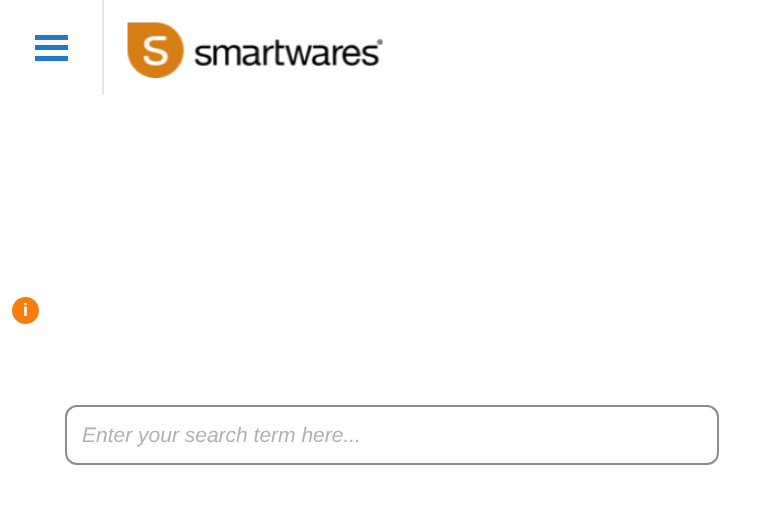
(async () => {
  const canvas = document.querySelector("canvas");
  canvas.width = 759;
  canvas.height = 507;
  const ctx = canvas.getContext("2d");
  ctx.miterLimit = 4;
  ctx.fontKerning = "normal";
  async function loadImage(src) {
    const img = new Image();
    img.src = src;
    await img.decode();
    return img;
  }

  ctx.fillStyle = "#ffffff";
  ctx.fillRect(0, 0, 759, 507);
  for (const [x, y, w, h, color] of [
    [102, 0, 2, 95, "#e6e6e6"],
    [35, 45, 33, 5, "#1f7ac9"],
    [35, 35, 33, 5, "#1f7ac9"],
    [35, 56, 33, 5, "#1f7ac9"],
  ]) {
    ctx.fillStyle = color;
    ctx.fillRect(x, y, w, h);
  }
  ctx.drawImage(await loadImage("img/1.png"), 127, 22, 256, 57);
  ctx.fillStyle = "#f77e0c";
  ctx.beginPath();
  ctx.arc(25.5, 310.5, 13.5, 0, Math.PI * 2);
  ctx.fill();
  ctx.beginPath();
  ctx.roundRect(66, 406, 652, 58, 11);
  ctx.strokeStyle = "#8c8c8c";
  ctx.lineWidth = 2;
  ctx.stroke();
  ctx.font = "bold 18px Liberation Sans";
  ctx.fillStyle = "#ffffff";
  ctx.fillText("i", 23, 316);
  ctx.font = "italic 21px Liberation Sans";
  ctx.fillStyle = "#b2b2b2";
  ctx.fillText("Enter your search term here...", 82, 442);
})();
